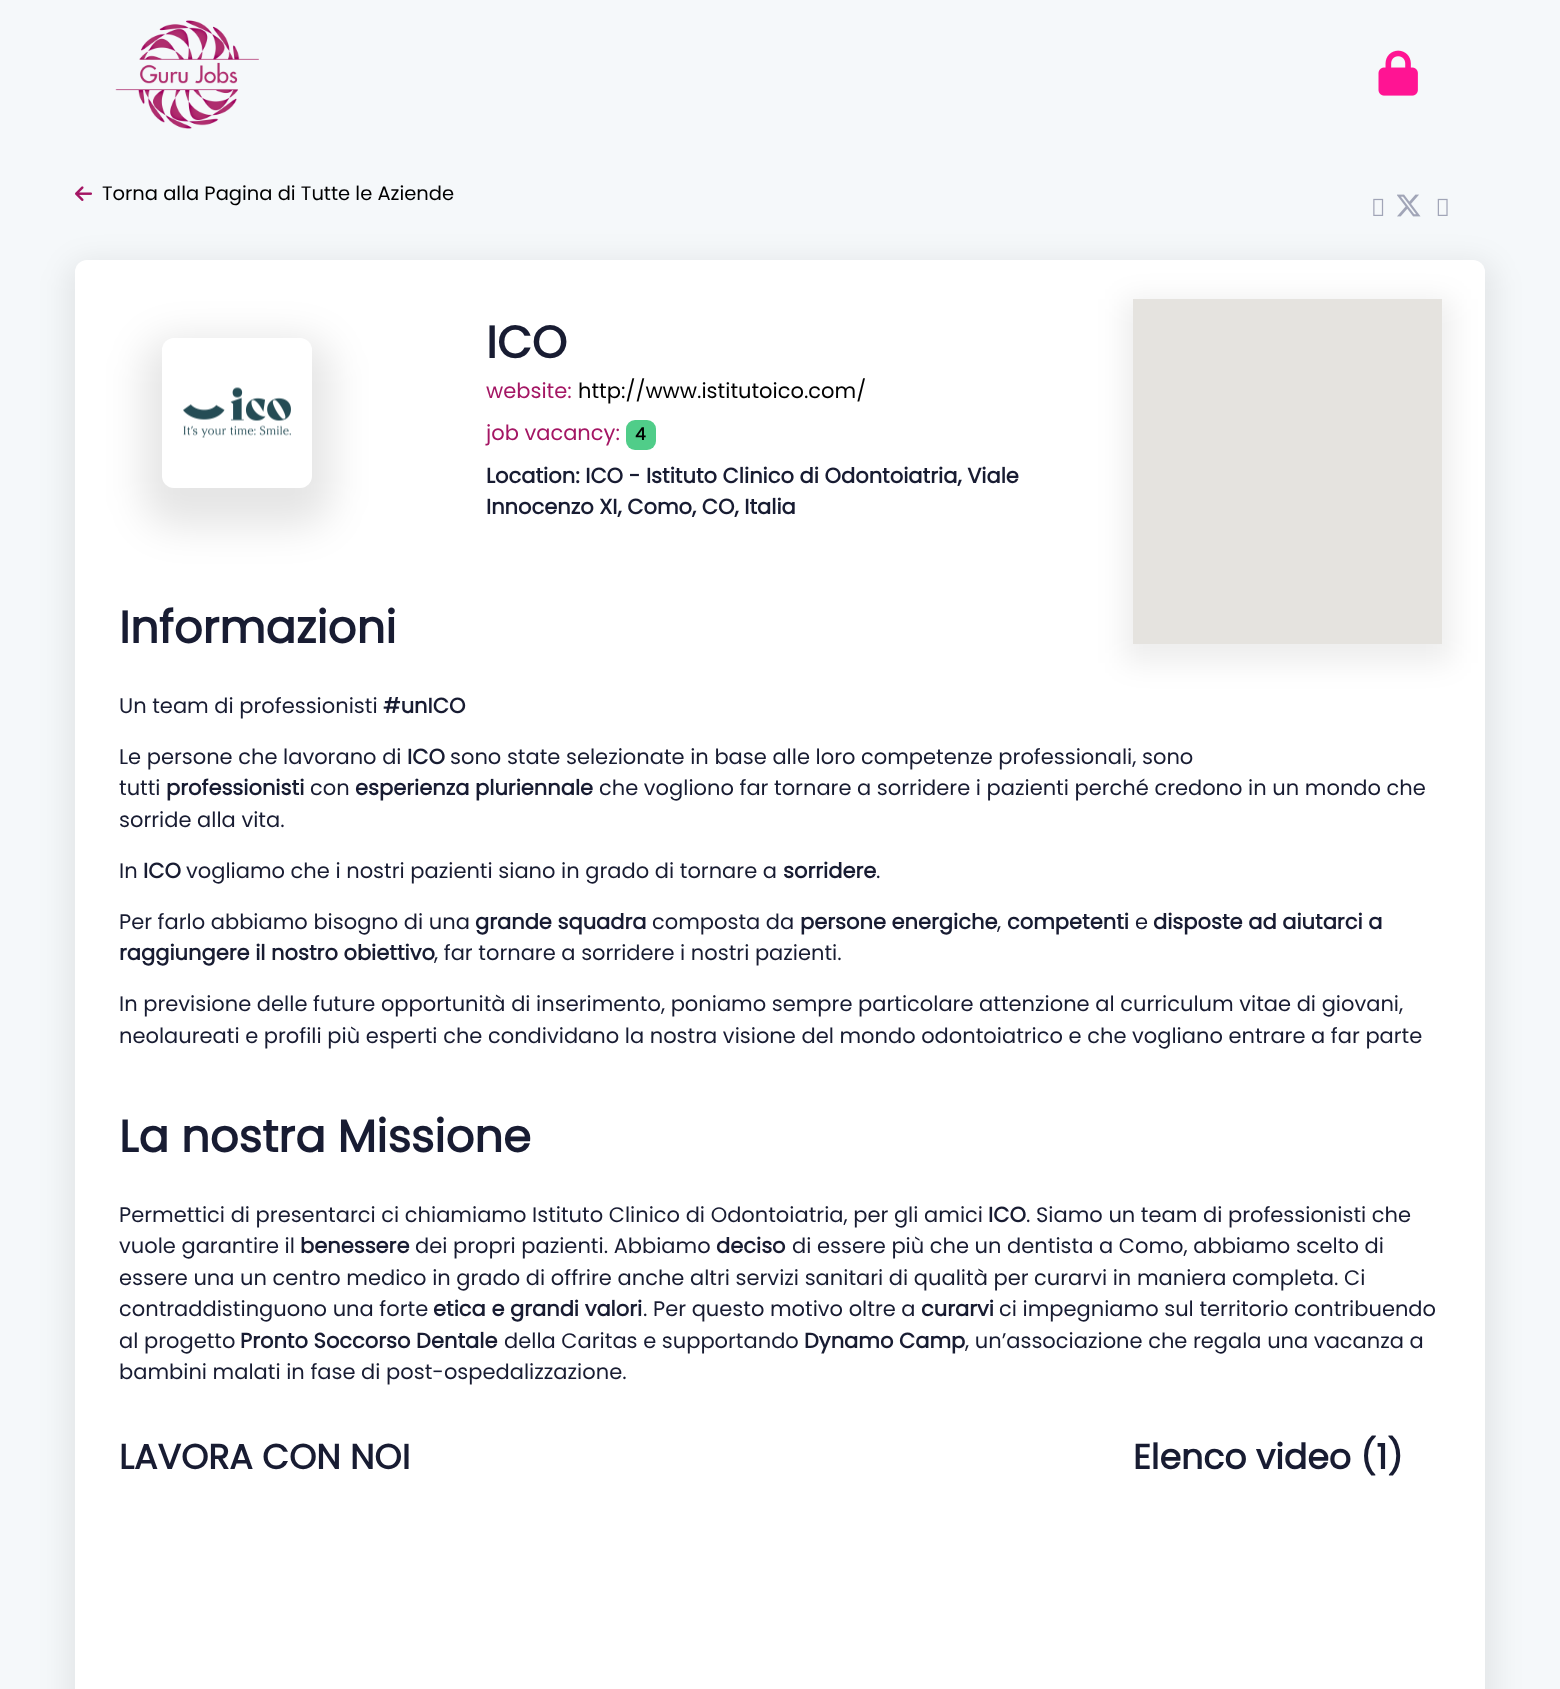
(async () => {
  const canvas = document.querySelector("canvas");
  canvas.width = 1560;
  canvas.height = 1689;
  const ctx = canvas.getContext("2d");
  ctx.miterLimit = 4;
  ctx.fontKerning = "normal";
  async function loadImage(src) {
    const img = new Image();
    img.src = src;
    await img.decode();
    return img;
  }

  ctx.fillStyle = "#f5f8fa";
  ctx.fillRect(0, 0, 1560, 1689);
  ctx.drawImage(await loadImage("img/1.png"), 115, 20, 144, 109);
  ctx.drawImage(await loadImage("img/2.png"), 1378, 50, 40, 46);
  ctx.drawImage(await loadImage("img/3.png"), 75, 186, 17, 15);
  ctx.drawImage(await loadImage("img/4.png"), 1373, 198, 11, 18);
  ctx.drawImage(await loadImage("img/5.png"), 1397, 194, 24, 23);
  ctx.drawImage(await loadImage("img/6.png"), 1437, 198, 11, 18);
  ctx.fillStyle = "rgba(0, 0, 0, 0.07)";
  ctx.filter = "blur(14.5px)";
  ctx.beginPath();
  ctx.roundRect(66, 260, 1430, 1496, 23);
  ctx.fill();
  ctx.filter = "none";
  ctx.fillStyle = "#ffffff";
  ctx.beginPath();
  ctx.roundRect(75, 260, 1410, 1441, 12);
  ctx.fill();
  ctx.fillStyle = "#50cd89";
  ctx.beginPath();
  ctx.roundRect(626, 420, 30, 30, 9);
  ctx.fill();
  ctx.fillStyle = "rgba(0, 0, 0, 0.07)";
  ctx.filter = "blur(14.5px)";
  ctx.beginPath();
  ctx.rect(1124, 299, 328, 364);
  ctx.fill();
  ctx.filter = "none";
  ctx.fillStyle = "#e5e3df";
  ctx.fillRect(1133, 299, 309, 345);
  ctx.fillStyle = "rgba(0, 0, 0, 0.1)";
  ctx.filter = "blur(19.5px)";
  ctx.beginPath();
  ctx.roundRect(143, 338, 189, 189, 32);
  ctx.fill();
  ctx.filter = "none";
  ctx.fillStyle = "#ffffff";
  ctx.beginPath();
  ctx.roundRect(162, 338, 150, 150, 12);
  ctx.fill();
  ctx.drawImage(await loadImage("img/7.png"), 183, 387, 108, 51);
  ctx.font = "19.5px Poppins";
  ctx.fillStyle = "#000000";
  ctx.fillText("Torna alla Pagina di Tutte le Aziende", 102, 200);
  ctx.font = "bold 45px Poppins";
  ctx.fillStyle = "#181c32";
  ctx.fillText("ICO", 486, 358);
  ctx.font = "21px Poppins";
  ctx.fillStyle = "#a41664";
  ctx.fillText("website:", 486, 398);
  ctx.fillStyle = "#000000";
  ctx.fillText("http://www.istitutoico.com/", 578, 398);
  ctx.fillStyle = "#a41664";
  ctx.fillText("job vacancy:", 486, 440);
  ctx.font = "bold 17px Poppins";
  ctx.fillStyle = "#000000";
  ctx.fillText("4", 635, 440);
  ctx.font = "bold 21px Poppins";
  ctx.fillStyle = "#181c32";
  ctx.fillText("Location: ICO - Istituto Clinico di Odontoiatria, Viale", 486, 483);
  ctx.fillText("Innocenzo XI, Como, CO, Italia", 486, 514);
  ctx.font = "bold 45px Poppins";
  ctx.fillText("Informazioni", 119, 643);
  ctx.font = "21px Poppins";
  ctx.fillText("Un team di professionisti", 119, 713);
  ctx.font = "bold 21px Poppins";
  ctx.fillText("#unICO", 383, 713);
  ctx.font = "21px Poppins";
  ctx.fillText("Le persone che lavorano di", 119, 764);
  ctx.font = "bold 21px Poppins";
  ctx.fillText("ICO", 407, 764);
  ctx.font = "21px Poppins";
  ctx.fillText("sono state selezionate in base alle loro competenze professionali, sono", 450, 764);
  ctx.fillText("tutti", 119, 795);
  ctx.font = "bold 21px Poppins";
  ctx.fillText("professionisti", 166, 795);
  ctx.font = "21px Poppins";
  ctx.fillText("con", 310, 795);
  ctx.font = "bold 21px Poppins";
  ctx.fillText("esperienza pluriennale", 355, 795);
  ctx.font = "21px Poppins";
  for (const [text, x, y] of [
    ["che vogliono far tornare a sorridere i pazienti perché credono in un mondo che", 599, 795],
    ["sorride alla vita.", 119, 827],
    ["In", 119, 878],
  ]) {
    ctx.fillText(text, x, y);
  }
  ctx.font = "bold 21px Poppins";
  ctx.fillText("ICO", 143, 878);
  ctx.font = "21px Poppins";
  ctx.fillText("vogliamo che i nostri pazienti siano in grado di tornare a", 186, 878);
  ctx.font = "bold 21px Poppins";
  ctx.fillText("sorridere", 783, 878);
  ctx.font = "21px Poppins";
  ctx.fillText(".", 876, 878);
  ctx.fillText("Per farlo abbiamo bisogno di una", 119, 929);
  ctx.font = "bold 21px Poppins";
  ctx.fillText("grande squadra", 475, 929);
  ctx.font = "21px Poppins";
  ctx.fillText("composta da", 652, 929);
  ctx.font = "bold 21px Poppins";
  ctx.fillText("persone energiche", 800, 929);
  ctx.font = "21px Poppins";
  ctx.fillText(",", 997, 929);
  ctx.font = "bold 21px Poppins";
  ctx.fillText("competenti", 1007, 929);
  ctx.font = "21px Poppins";
  ctx.fillText("e", 1135, 929);
  ctx.font = "bold 21px Poppins";
  ctx.fillText("disposte ad aiutarci a", 1153, 929);
  ctx.fillText("raggiungere il nostro obiettivo", 119, 960);
  ctx.font = "21px Poppins";
  for (const [text, x, y] of [
    [", far tornare a sorridere i nostri pazienti.", 434, 960],
    ["In previsione delle future opportunità di inserimento, poniamo sempre particolare attenzione al curriculum vitae di giovani,", 119, 1011],
    ["neolaureati e profili più esperti che condividano la nostra visione del mondo odontoiatrico e che vogliano entrare a far parte", 119, 1043],
  ]) {
    ctx.fillText(text, x, y);
  }
  ctx.font = "bold 45px Poppins";
  ctx.fillText("La nostra Missione", 119, 1152);
  ctx.font = "21px Poppins";
  ctx.fillText("Permettici di presentarci ci chiamiamo Istituto Clinico di Odontoiatria, per gli amici", 119, 1222);
  ctx.font = "bold 21px Poppins";
  ctx.fillText("ICO", 988, 1222);
  ctx.font = "21px Poppins";
  ctx.fillText(". Siamo un team di professionisti che", 1026, 1222);
  ctx.fillText("vuole garantire il", 119, 1253);
  ctx.font = "bold 21px Poppins";
  ctx.fillText("benessere", 300, 1253);
  ctx.font = "21px Poppins";
  ctx.fillText("dei propri pazienti. Abbiamo", 415, 1253);
  ctx.font = "bold 21px Poppins";
  ctx.fillText("deciso", 716, 1253);
  ctx.font = "21px Poppins";
  for (const [text, x, y] of [
    ["di essere più che un dentista a Como, abbiamo scelto di", 792, 1253],
    ["essere una un centro medico in grado di offrire anche altri servizi sanitari di qualità per curarvi in maniera completa. Ci", 119, 1285],
    ["contraddistinguono una forte", 119, 1316],
  ]) {
    ctx.fillText(text, x, y);
  }
  ctx.font = "bold 21px Poppins";
  ctx.fillText("etica e grandi valori", 433, 1316);
  ctx.font = "21px Poppins";
  ctx.fillText(". Per questo motivo oltre a", 643, 1316);
  ctx.font = "bold 21px Poppins";
  ctx.fillText("curarvi", 921, 1316);
  ctx.font = "21px Poppins";
  ctx.fillText("ci impegniamo sul territorio contribuendo", 999, 1316);
  ctx.fillText("al progetto", 119, 1348);
  ctx.font = "bold 21px Poppins";
  ctx.fillText("Pronto Soccorso Dentale", 240, 1348);
  ctx.font = "21px Poppins";
  ctx.fillText("della Caritas e supportando", 504, 1348);
  ctx.font = "bold 21px Poppins";
  ctx.fillText("Dynamo Camp", 804, 1348);
  ctx.font = "21px Poppins";
  ctx.fillText(", un’associazione che regala una vacanza a", 965, 1348);
  ctx.fillText("bambini malati in fase di post-ospedalizzazione.", 119, 1379);
  ctx.font = "bold 34.75px Poppins";
  ctx.fillText("LAVORA CON NOI", 119, 1469);
  ctx.fillText("Elenco video (1)", 1133, 1469);
})();
